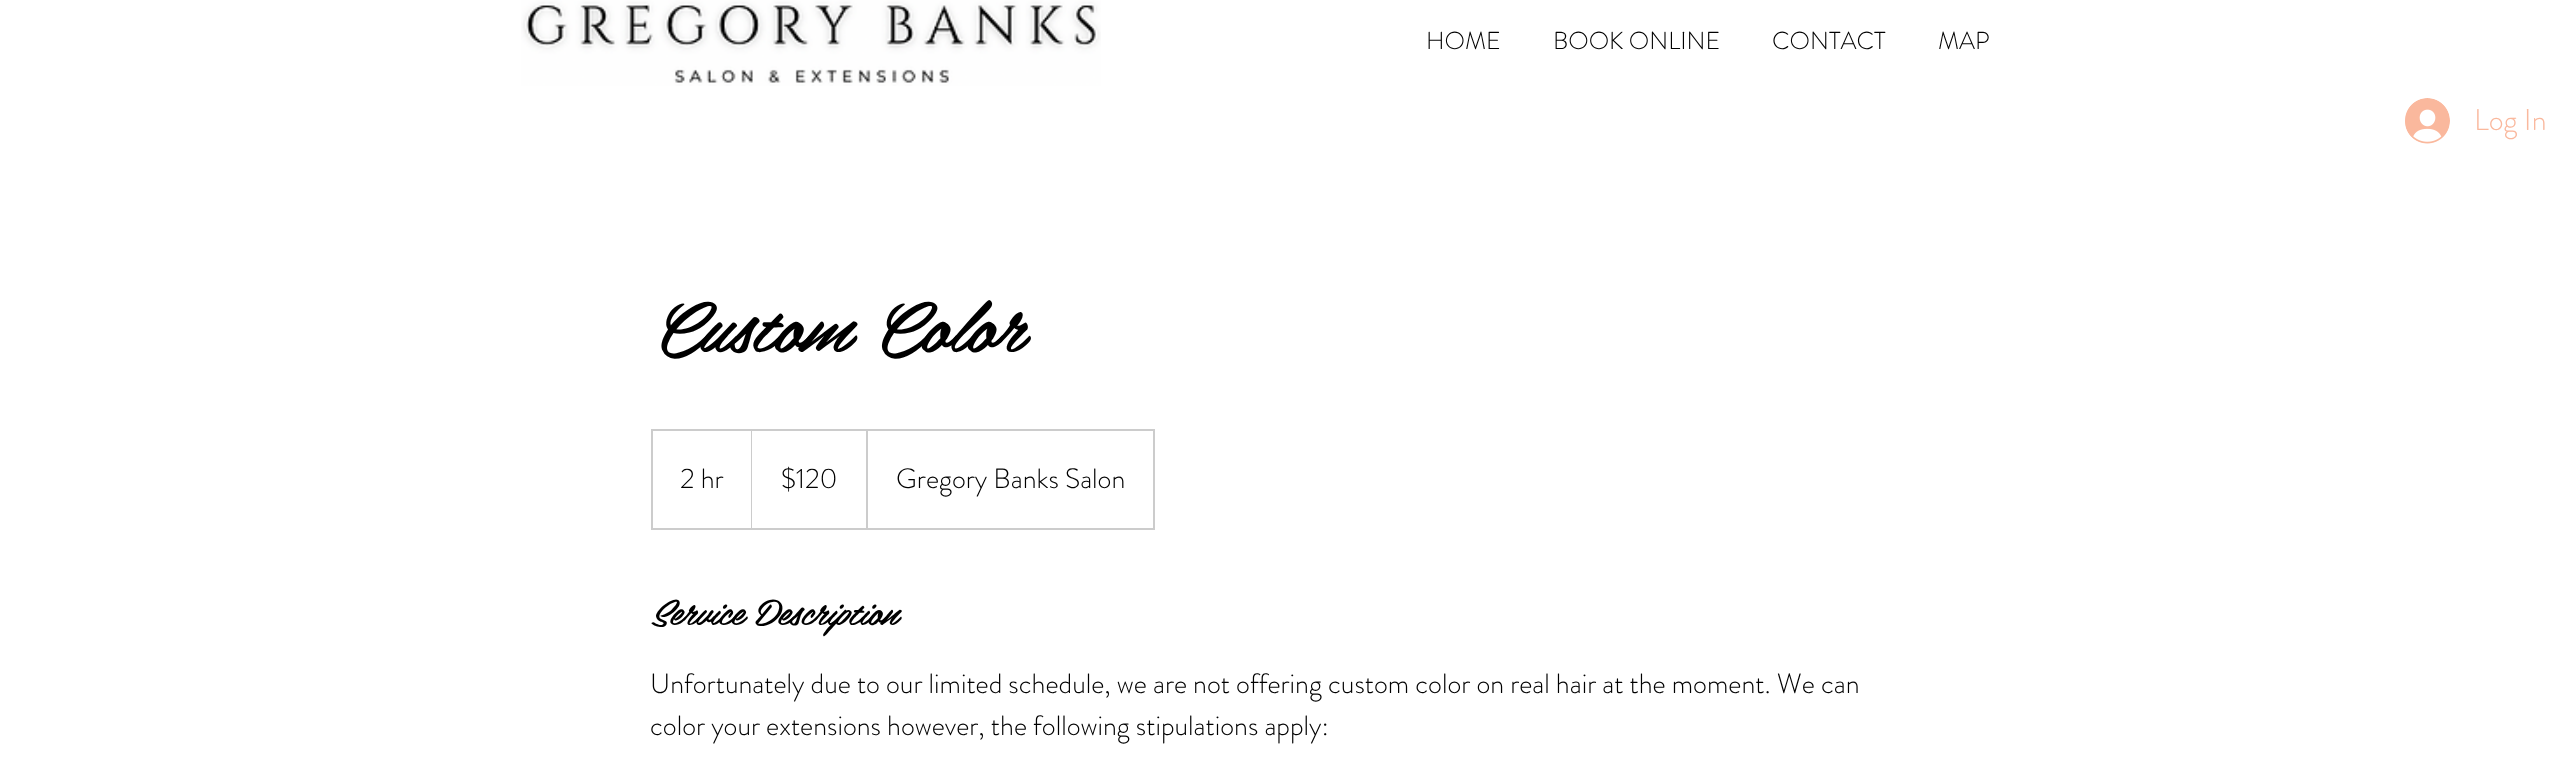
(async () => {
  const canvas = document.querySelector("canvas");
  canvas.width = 2560;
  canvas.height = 762;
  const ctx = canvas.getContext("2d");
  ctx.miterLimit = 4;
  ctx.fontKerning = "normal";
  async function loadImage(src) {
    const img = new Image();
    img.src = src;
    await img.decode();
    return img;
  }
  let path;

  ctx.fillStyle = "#ffffff";
  ctx.fillRect(0, 0, 2560, 762);
  ctx.drawImage(await loadImage("img/1.png"), 521, 0, 580, 86);
  ctx.drawImage(await loadImage("img/2.png"), 2405, 98, 45, 46);
  ctx.strokeStyle = "#cccccc";
  ctx.lineWidth = 2;
  ctx.strokeRect(652, 430, 502, 99);
  ctx.fillStyle = "#cccccc";
  path = new Path2D("M751 528V429L752 430V528Z");
  ctx.fill(path);
  ctx.save();
  ctx.beginPath();
  ctx.rect(653, 431, 500, 98);
  ctx.clip();
  path = new Path2D("M866 528V429L868 430V528Z");
  ctx.fill(path);
  ctx.restore();
  ctx.font = "300 24.5px 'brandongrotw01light'";
  ctx.fillStyle = "#000000";
  for (const [text, x, y] of [
    ["HOME", 1426, 49],
    ["BOOK ONLINE", 1553, 49],
    ["CONTACT", 1772, 49],
    ["MAP", 1938, 49],
  ]) {
    ctx.fillText(text, x, y);
  }
  ctx.font = "300 30px 'brandongrotw01light'";
  ctx.fillStyle = "#fab89d";
  ctx.fillText("Log In", 2474, 130);
  ctx.font = "italic 70px 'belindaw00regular'";
  ctx.fillStyle = "#000000";
  ctx.fillText("Custom Color", 650, 352);
  ctx.font = "300 28px 'brandongrotw01light'";
  for (const [text, x, y] of [
    ["2 hr", 680, 488],
    ["$120", 781, 488],
    ["Gregory Banks Salon", 896, 488],
  ]) {
    ctx.fillText(text, x, y);
  }
  ctx.font = "italic 35px 'belindaw00regular'";
  ctx.fillText("Service Description", 650, 625);
  ctx.font = "300 28px 'brandongrotw01light'";
  ctx.fillText("Unfortunately due to our limited schedule, we are not offering custom color on real hair at the moment. We can", 650, 693);
  ctx.fillText("color your extensions however, the following stipulations apply:", 650, 735);
})();
